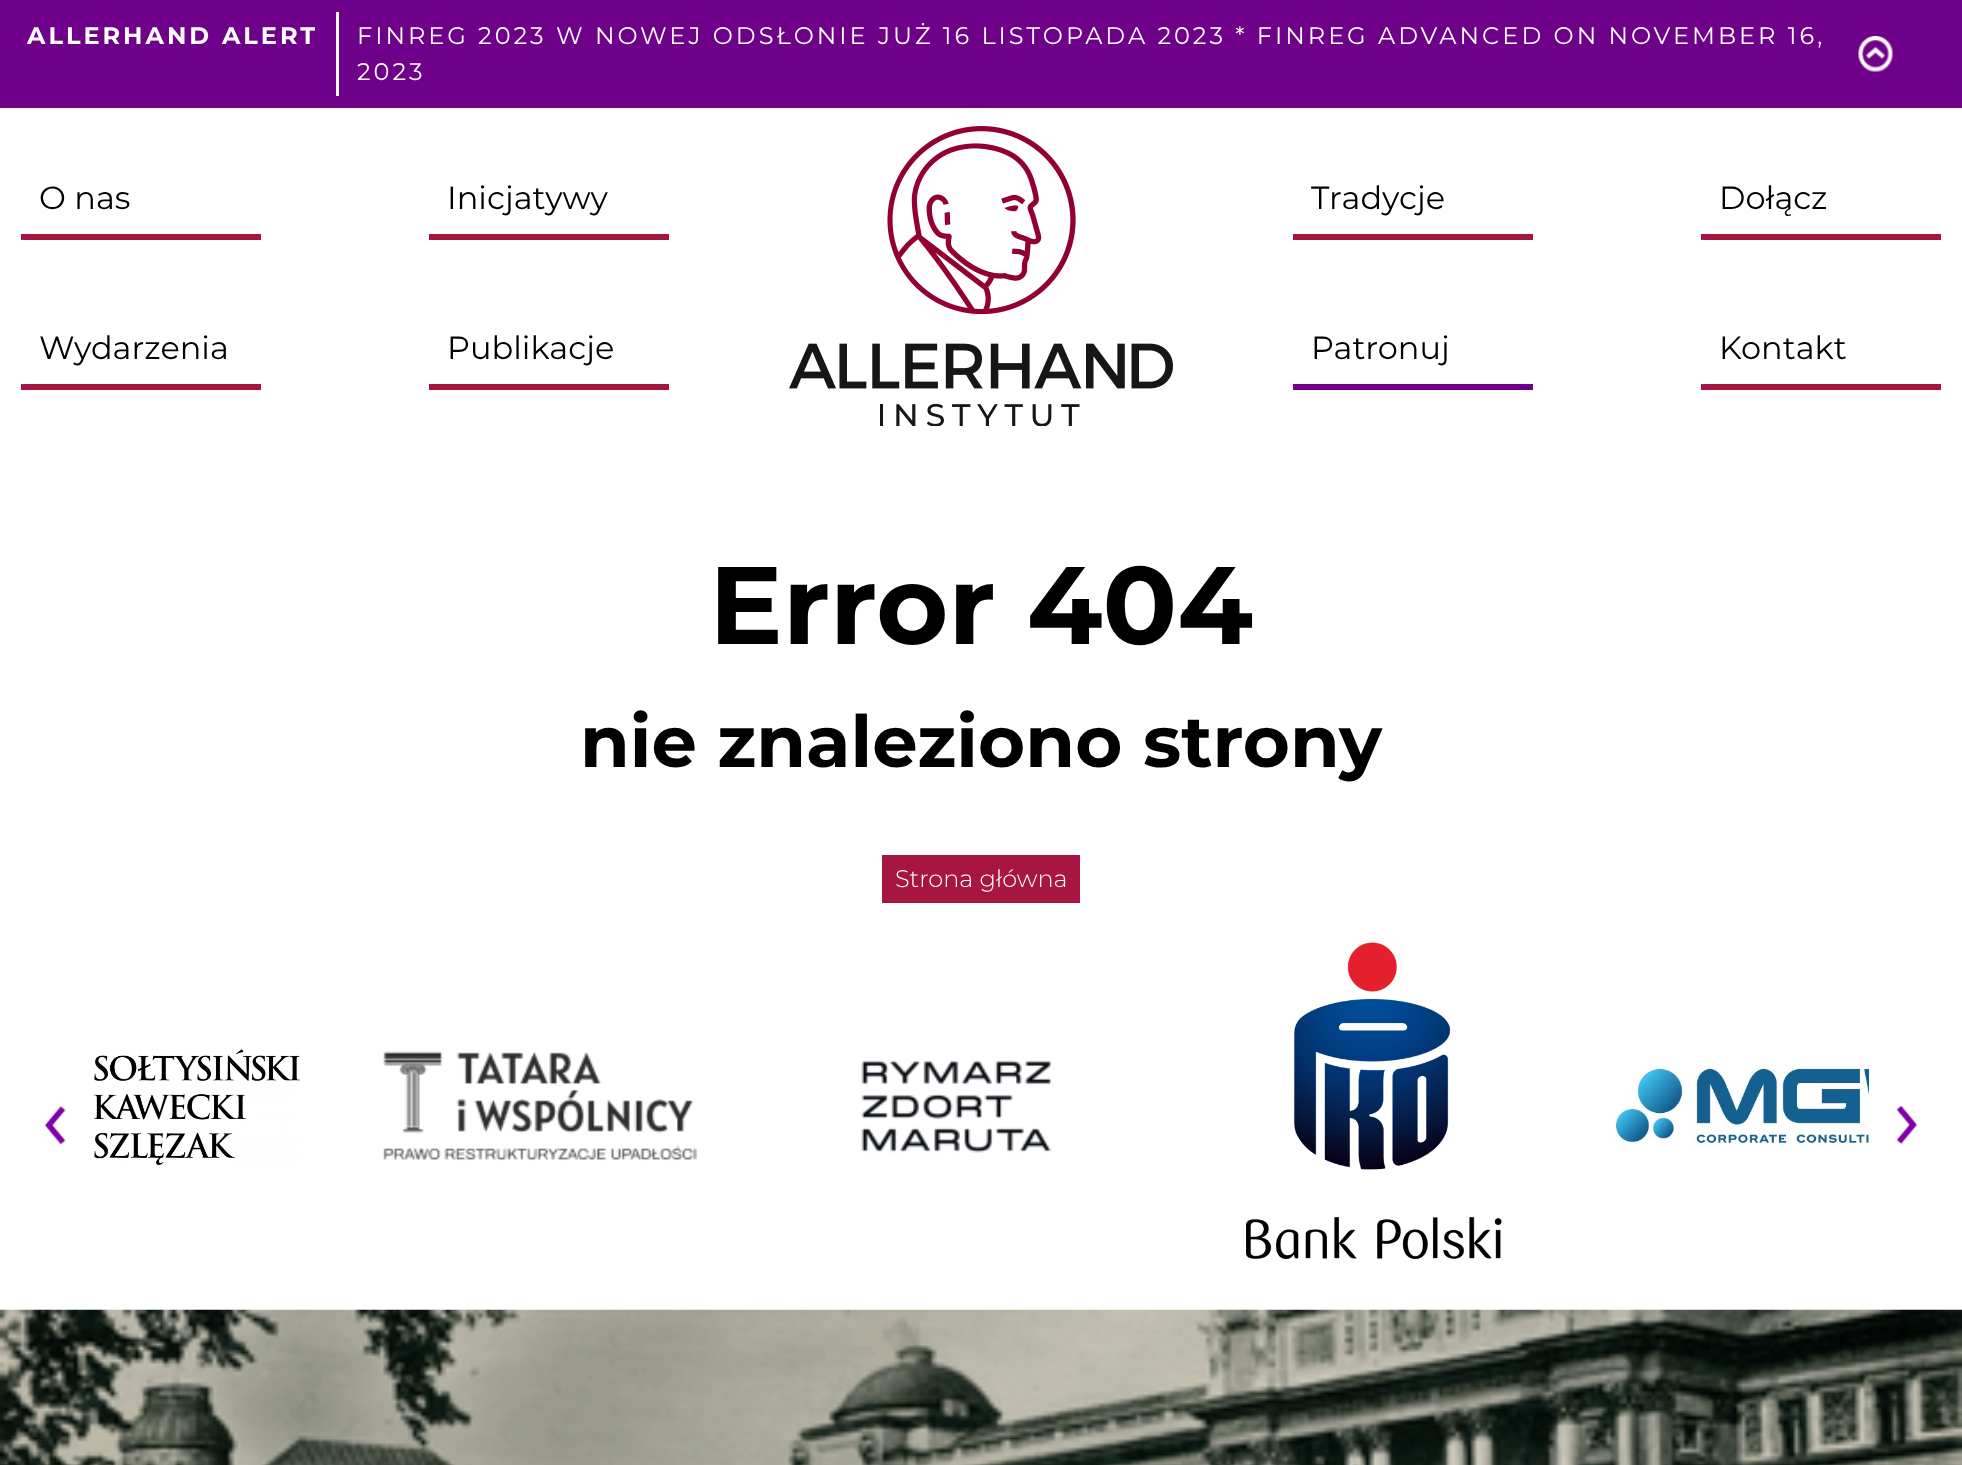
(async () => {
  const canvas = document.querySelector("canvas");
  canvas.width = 1962;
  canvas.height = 1465;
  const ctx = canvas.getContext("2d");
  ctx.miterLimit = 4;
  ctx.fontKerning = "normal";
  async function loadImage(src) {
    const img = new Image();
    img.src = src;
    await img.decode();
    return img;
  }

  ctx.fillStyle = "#ffffff";
  ctx.fillRect(0, 0, 1962, 1465);
  ctx.fillStyle = "#6f0089";
  ctx.fillRect(0, 0, 1962, 108);
  ctx.fillStyle = "#ffffff";
  ctx.fillRect(336, 12, 3, 84);
  ctx.drawImage(await loadImage("img/1.png"), 1858, 36, 35, 36);
  for (const [x, y, w, h, color] of [
    [21, 234, 240, 6, "#a61641"],
    [429, 234, 240, 6, "#a61641"],
    [21, 384, 240, 6, "#a61641"],
    [429, 384, 240, 6, "#a61641"],
  ]) {
    ctx.fillStyle = color;
    ctx.fillRect(x, y, w, h);
  }
  ctx.drawImage(await loadImage("img/2.png"), 789, 126, 384, 300);
  for (const [x, y, w, h, color] of [
    [1293, 234, 240, 6, "#a61641"],
    [1701, 234, 240, 6, "#a61641"],
    [1293, 384, 240, 6, "#6f0089"],
    [1701, 384, 240, 6, "#a61641"],
    [882, 855, 198, 48, "#a61641"],
  ]) {
    ctx.fillStyle = color;
    ctx.fillRect(x, y, w, h);
  }
  ctx.drawImage(await loadImage("img/3.png"), 44, 1106, 22, 39);
  ctx.drawImage(await loadImage("img/4.png"), 93, 1049, 208, 116);
  ctx.drawImage(await loadImage("img/5.png"), 383, 1051, 315, 110);
  ctx.drawImage(await loadImage("img/6.png"), 861, 1060, 191, 93);
  ctx.drawImage(await loadImage("img/7.png"), 1246, 942, 256, 318);
  ctx.drawImage(await loadImage("img/8.png"), 1609, 1060, 260, 90);
  ctx.drawImage(await loadImage("img/9.png"), 1896, 1105, 22, 39);
  ctx.drawImage(await loadImage("img/10.png"), 0, 1309, 1962, 156);
  ctx.letterSpacing = "3px";
  ctx.font = "bold 24px Montserrat";
  ctx.fillStyle = "#ffffff";
  ctx.fillText("ALLERHAND ALERT", 27, 44);
  ctx.font = "24px Montserrat";
  ctx.fillText("FINREG 2023 W NOWEJ ODSŁONIE JUŻ 16 LISTOPADA 2023 * FINREG ADVANCED ON NOVEMBER 16,", 357, 44);
  ctx.fillText("2023", 357, 80);
  ctx.letterSpacing = "0px";
  ctx.font = "32px Montserrat";
  ctx.fillStyle = "#000000";
  for (const [text, x, y] of [
    ["O nas", 39, 209],
    ["Inicjatywy", 447, 209],
    ["Wydarzenia", 39, 359],
    ["Publikacje", 447, 359],
    ["Tradycje", 1311, 209],
    ["Dołącz", 1719, 209],
    ["Patronuj", 1311, 359],
    ["Kontakt", 1719, 359],
  ]) {
    ctx.fillText(text, x, y);
  }
  ctx.font = "bold 110px Montserrat";
  ctx.fillText("Error 404", 709, 644);
  ctx.font = "bold 72px Montserrat";
  ctx.fillText("nie znaleziono strony", 580, 767);
  ctx.font = "300 24px Montserrat";
  ctx.fillStyle = "#ffffff";
  ctx.fillText("Strona główna", 895, 887);
})();
